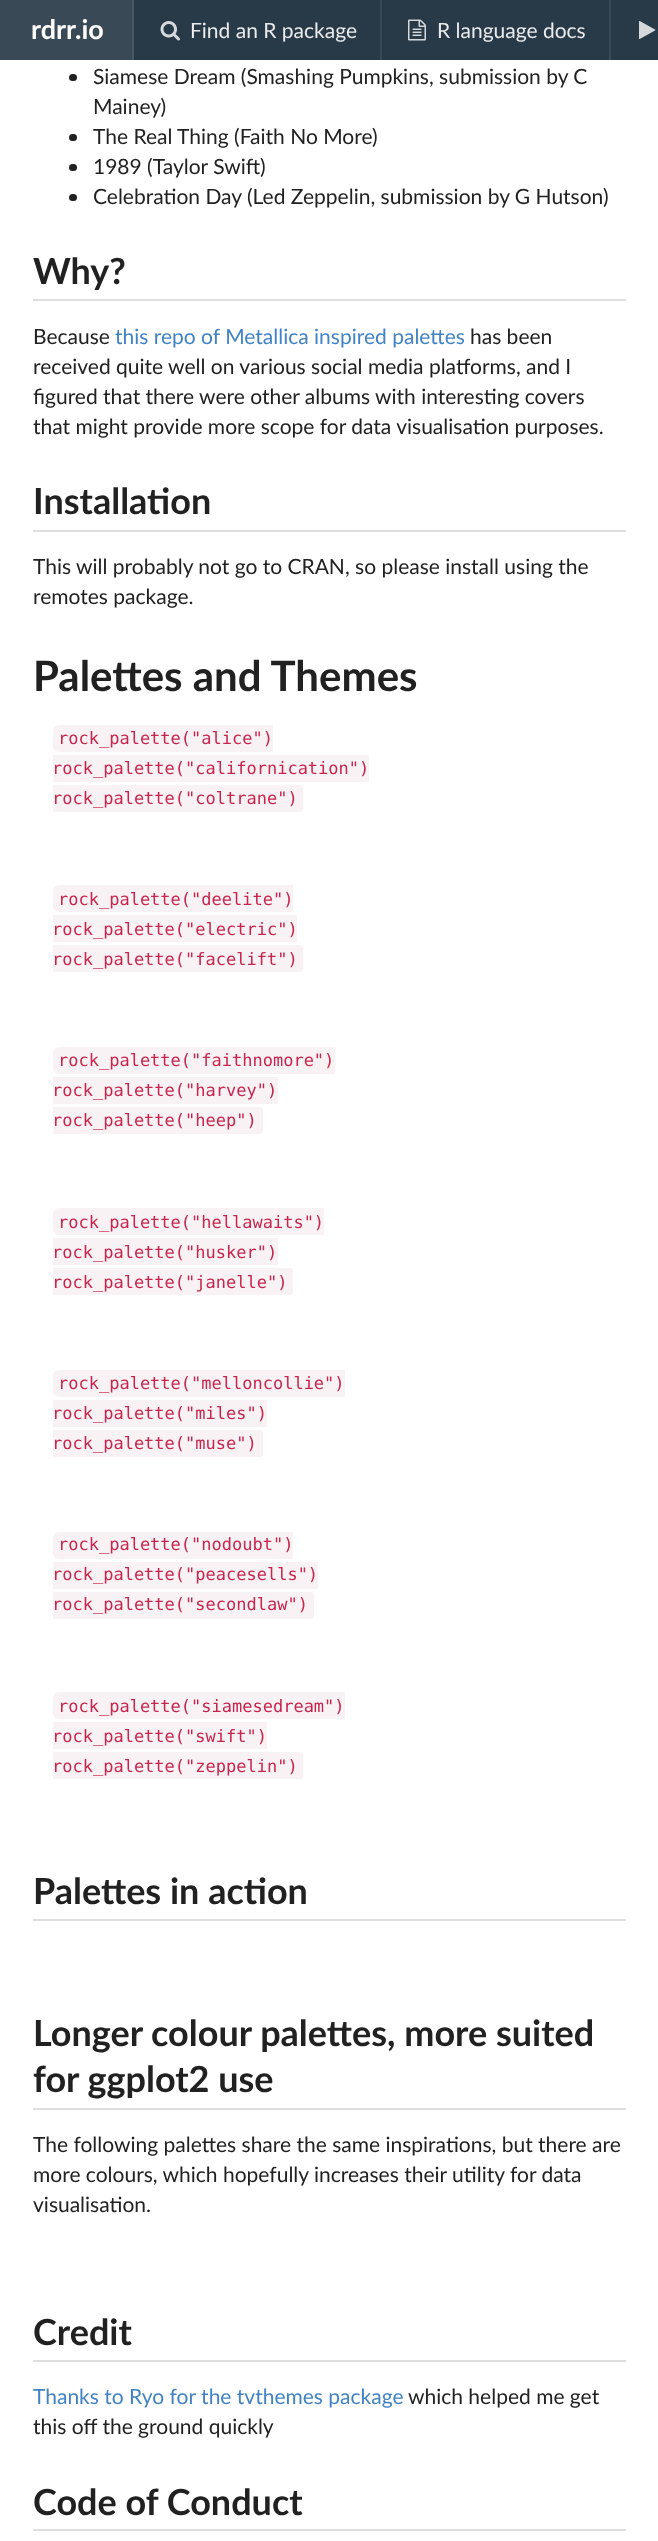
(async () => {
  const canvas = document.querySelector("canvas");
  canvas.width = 658;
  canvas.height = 2541;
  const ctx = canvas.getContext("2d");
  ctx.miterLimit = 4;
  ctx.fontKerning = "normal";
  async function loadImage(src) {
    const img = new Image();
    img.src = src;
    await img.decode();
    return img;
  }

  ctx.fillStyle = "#ffffff";
  ctx.fillRect(0, 0, 658, 2541);
  for (const [x, y, w, h, color] of [
    [134, 0, 524, 60, "#283947"],
    [0, 0, 132, 60, "#394956"],
    [132, 0, 2, 60, "#495864"],
  ]) {
    ctx.fillStyle = color;
    ctx.fillRect(x, y, w, h);
  }
  ctx.drawImage(await loadImage("img/1.png"), 160, 21, 20, 20);
  ctx.fillStyle = "#394956";
  ctx.fillRect(380, 0, 2, 60);
  ctx.drawImage(await loadImage("img/2.png"), 408, 19, 18, 22);
  ctx.fillRect(609, 0, 2, 60);
  ctx.drawImage(await loadImage("img/3.png"), 639, 21, 17, 18);
  ctx.fillStyle = "#212121";
  ctx.beginPath();
  ctx.roundRect(69, 74, 8, 7, 3.5);
  ctx.fill();
  ctx.beginPath();
  ctx.roundRect(69, 134, 8, 7, 3.5);
  ctx.fill();
  ctx.beginPath();
  ctx.roundRect(69, 164, 8, 7, 3.5);
  ctx.fill();
  ctx.beginPath();
  ctx.roundRect(69, 194, 8, 7, 3.5);
  ctx.fill();
  ctx.fillStyle = "#dedede";
  ctx.fillRect(33, 299, 593, 2);
  ctx.fillRect(33, 530, 593, 2);
  ctx.fillStyle = "#f9f2f4";
  ctx.beginPath();
  ctx.roundRect(53, 725, 220, 27, [6, 0, 0, 6]);
  ctx.fill();
  ctx.fillRect(53, 755, 316, 27);
  ctx.fillRect(53, 785, 244, 27);
  ctx.beginPath();
  ctx.roundRect(297, 785, 6, 27, [0, 3, 3, 0]);
  ctx.fill();
  ctx.beginPath();
  ctx.roundRect(53, 885, 240, 27, [6, 0, 0, 6]);
  ctx.fill();
  ctx.fillRect(53, 915, 244, 27);
  ctx.fillRect(53, 945, 244, 27);
  ctx.beginPath();
  ctx.roundRect(297, 945, 6, 27, [0, 3, 3, 0]);
  ctx.fill();
  ctx.beginPath();
  ctx.roundRect(53, 1047, 282, 27, [6, 0, 0, 6]);
  ctx.fill();
  ctx.fillRect(53, 1077, 225, 27);
  ctx.fillRect(53, 1107, 204, 27);
  ctx.beginPath();
  ctx.roundRect(257, 1107, 6, 27, [0, 3, 3, 0]);
  ctx.fill();
  ctx.beginPath();
  ctx.roundRect(53, 1208, 271, 27, [6, 0, 0, 6]);
  ctx.fill();
  ctx.fillRect(53, 1238, 225, 27);
  ctx.fillRect(53, 1268, 234, 27);
  ctx.beginPath();
  ctx.roundRect(287, 1268, 6, 27, [0, 3, 3, 0]);
  ctx.fill();
  ctx.beginPath();
  ctx.roundRect(53, 1370, 292, 27, [6, 0, 0, 6]);
  ctx.fill();
  ctx.fillRect(53, 1400, 214, 27);
  ctx.fillRect(53, 1430, 204, 27);
  ctx.beginPath();
  ctx.roundRect(257, 1430, 6, 27, [0, 3, 3, 0]);
  ctx.fill();
  ctx.beginPath();
  ctx.roundRect(53, 1532, 240, 27, [6, 0, 0, 6]);
  ctx.fill();
  ctx.fillRect(53, 1562, 265, 27);
  ctx.fillRect(53, 1592, 255, 27);
  ctx.beginPath();
  ctx.roundRect(308, 1592, 6, 27, [0, 3, 3, 0]);
  ctx.fill();
  ctx.beginPath();
  ctx.roundRect(53, 1692, 292, 27, [6, 0, 0, 6]);
  ctx.fill();
  ctx.fillRect(53, 1722, 214, 27);
  ctx.fillRect(53, 1752, 244, 27);
  ctx.beginPath();
  ctx.roundRect(297, 1752, 6, 27, [0, 3, 3, 0]);
  ctx.fill();
  for (const [x, y, w, h, color] of [
    [33, 1919, 593, 2, "#dedede"],
    [33, 2108, 593, 2, "#dedede"],
    [33, 2360, 593, 2, "#dedede"],
    [33, 2529, 593, 2, "#dedede"],
  ]) {
    ctx.fillStyle = color;
    ctx.fillRect(x, y, w, h);
  }
  ctx.font = "bold 27px Lato";
  ctx.fillStyle = "#ffffff";
  ctx.fillText("rdrr.io", 31, 39);
  ctx.font = "21px Lato";
  ctx.fillStyle = "#eaebed";
  ctx.fillText("Find an R package", 190, 38);
  ctx.fillText("R language docs", 437, 38);
  ctx.fillStyle = "#212121";
  for (const [text, x, y] of [
    ["Siamese Dream (Smashing Pumpkins, submission by C", 93, 84],
    ["Mainey)", 93, 114],
    ["The Real Thing (Faith No More)", 93, 144],
    ["1989 (Taylor Swift)", 93, 174],
    ["Celebration Day (Led Zeppelin, submission by G Hutson)", 93, 204],
  ]) {
    ctx.fillText(text, x, y);
  }
  ctx.font = "bold 36px Lato";
  ctx.fillText("Why?", 33, 284);
  ctx.font = "21px Lato";
  ctx.fillText("Because", 33, 344);
  ctx.fillStyle = "#4183c4";
  ctx.fillText("this repo of Metallica inspired palettes", 115, 344);
  ctx.fillStyle = "#212121";
  for (const [text, x, y] of [
    ["has been", 470, 344],
    ["received quite well on various social media platforms, and I", 33, 374],
    ["figured that there were other albums with interesting covers", 33, 404],
    ["that might provide more scope for data visualisation purposes.", 33, 434],
  ]) {
    ctx.fillText(text, x, y);
  }
  ctx.font = "bold 36px Lato";
  ctx.fillText("Installation", 33, 514);
  ctx.font = "21px Lato";
  ctx.fillText("This will probably not go to CRAN, so please install using the", 33, 574);
  ctx.fillText("remotes package.", 33, 604);
  ctx.font = "bold 42px Lato";
  ctx.fillText("Palettes and Themes", 33, 691);
  ctx.font = "17px DejaVu Sans Mono";
  ctx.fillStyle = "#c7254e";
  for (const [text, x, y] of [
    ["rock_palette(\"alice\")", 58, 744],
    ["rock_palette(\"californication\")", 52, 774],
    ["rock_palette(\"coltrane\")", 52, 804],
    ["rock_palette(\"deelite\")", 58, 905],
    ["rock_palette(\"electric\")", 52, 935],
    ["rock_palette(\"facelift\")", 52, 965],
    ["rock_palette(\"faithnomore\")", 58, 1066],
    ["rock_palette(\"harvey\")", 52, 1096],
    ["rock_palette(\"heep\")", 52, 1126],
    ["rock_palette(\"hellawaits\")", 58, 1228],
    ["rock_palette(\"husker\")", 52, 1258],
    ["rock_palette(\"janelle\")", 52, 1288],
    ["rock_palette(\"melloncollie\")", 58, 1389],
    ["rock_palette(\"miles\")", 52, 1419],
    ["rock_palette(\"muse\")", 52, 1449],
    ["rock_palette(\"nodoubt\")", 58, 1550],
    ["rock_palette(\"peacesells\")", 52, 1580],
    ["rock_palette(\"secondlaw\")", 52, 1610],
    ["rock_palette(\"siamesedream\")", 58, 1712],
    ["rock_palette(\"swift\")", 52, 1742],
    ["rock_palette(\"zeppelin\")", 52, 1772],
  ]) {
    ctx.fillText(text, x, y);
  }
  ctx.font = "bold 36px Lato";
  ctx.fillStyle = "#212121";
  for (const [text, x, y] of [
    ["Palettes in action", 33, 1904],
    ["Longer colour palettes, more suited", 33, 2046],
    ["for ggplot2 use", 33, 2092],
  ]) {
    ctx.fillText(text, x, y);
  }
  ctx.font = "21px Lato";
  for (const [text, x, y] of [
    ["The following palettes share the same inspirations, but there are", 33, 2152],
    ["more colours, which hopefully increases their utility for data", 33, 2182],
    ["visualisation.", 33, 2212],
  ]) {
    ctx.fillText(text, x, y);
  }
  ctx.font = "bold 36px Lato";
  ctx.fillText("Credit", 33, 2345);
  ctx.font = "21px Lato";
  ctx.fillStyle = "#4183c4";
  ctx.fillText("Thanks to Ryo for the tvthemes package", 33, 2404);
  ctx.fillStyle = "#212121";
  ctx.fillText("which helped me get", 408, 2404);
  ctx.fillText("this off the ground quickly", 33, 2434);
  ctx.font = "bold 36px Lato";
  ctx.fillText("Code of Conduct", 33, 2515);
})();
